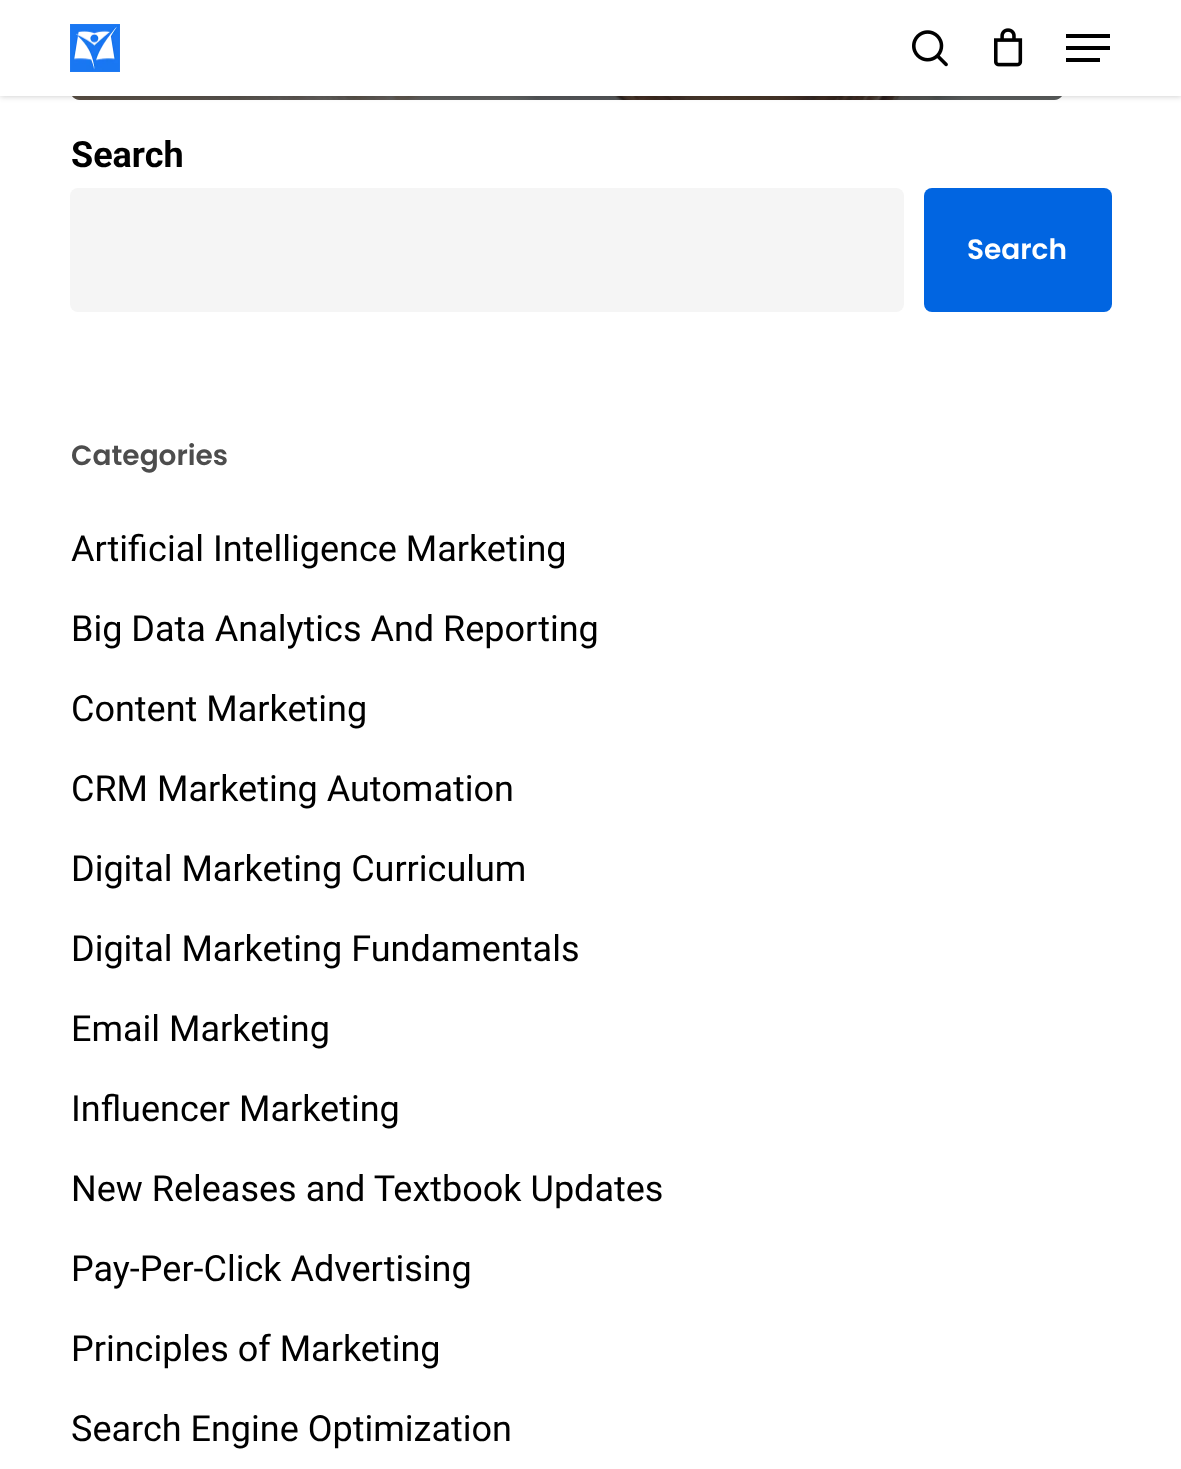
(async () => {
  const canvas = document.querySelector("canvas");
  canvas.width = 1181;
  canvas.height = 1469;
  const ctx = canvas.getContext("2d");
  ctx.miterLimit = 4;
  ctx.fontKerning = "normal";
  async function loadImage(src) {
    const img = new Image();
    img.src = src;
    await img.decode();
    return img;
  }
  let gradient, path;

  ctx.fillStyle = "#ffffff";
  ctx.fillRect(0, 0, 1181, 1469);
  ctx.fillStyle = "#b3b3b3";
  ctx.beginPath();
  ctx.roundRect(70, -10, 994, 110, 10);
  ctx.fill();
  ctx.drawImage(await loadImage("img/4.png"), 72, 96, 990, 4);
  gradient = ctx.createLinearGradient(569, -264, 569, 102);
  gradient.addColorStop(0, "rgba(35, 35, 35, 0)");
  gradient.addColorStop(1, "rgba(35, 35, 35, 0.65)");
  ctx.fillStyle = gradient;
  path = new Path2D("M70-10H1064V90C1064 95.5 1059.5 100 1054 100H80C74.5 100 70 95.5 70 90Z");
  ctx.fill(path);
  ctx.fillStyle = "rgba(0, 0, 0, 0.22)";
  ctx.filter = "blur(3px)";
  ctx.beginPath();
  ctx.rect(0, -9, 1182, 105);
  ctx.fill();
  ctx.filter = "none";
  ctx.fillStyle = "#ffffff";
  ctx.fillRect(0, 0, 1181, 96);
  ctx.drawImage(await loadImage("img/1.png"), 70, 24, 50, 48);
  ctx.drawImage(await loadImage("img/2.png"), 912, 30, 36, 37);
  ctx.drawImage(await loadImage("img/3.png"), 994, 28, 29, 39);
  for (const [x, y, w, h, color] of [
    [1066, 34, 44, 4, "#000000"],
    [1066, 58, 34, 4, "#000000"],
    [1066, 46, 44, 4, "#000000"],
  ]) {
    ctx.fillStyle = color;
    ctx.fillRect(x, y, w, h);
  }
  ctx.fillStyle = "#f5f5f5";
  ctx.beginPath();
  ctx.roundRect(70, 188, 834, 124, 8);
  ctx.fill();
  ctx.fillStyle = "#0165e1";
  ctx.beginPath();
  ctx.roundRect(924, 188, 188, 124, 8);
  ctx.fill();
  ctx.font = "bold 36px Roboto";
  ctx.fillStyle = "#000000";
  ctx.fillText("Search", 71, 167);
  ctx.font = "600 28px Poppins";
  ctx.fillStyle = "#ffffff";
  ctx.fillText("Search", 967, 259);
  ctx.fillStyle = "#4d4d4d";
  ctx.fillText("Categories", 71, 465);
  ctx.font = "36px Roboto";
  ctx.fillStyle = "#000000";
  for (const [text, x, y] of [
    ["Artificial Intelligence Marketing", 71, 561],
    ["Big Data Analytics And Reporting", 71, 641],
    ["Content Marketing", 71, 721],
    ["CRM Marketing Automation", 71, 801],
    ["Digital Marketing Curriculum", 71, 881],
    ["Digital Marketing Fundamentals", 71, 961],
    ["Email Marketing", 71, 1041],
    ["Influencer Marketing", 71, 1121],
    ["New Releases and Textbook Updates", 71, 1201],
    ["Pay-Per-Click Advertising", 71, 1281],
    ["Principles of Marketing", 71, 1361],
    ["Search Engine Optimization", 71, 1441],
  ]) {
    ctx.fillText(text, x, y);
  }
})();
